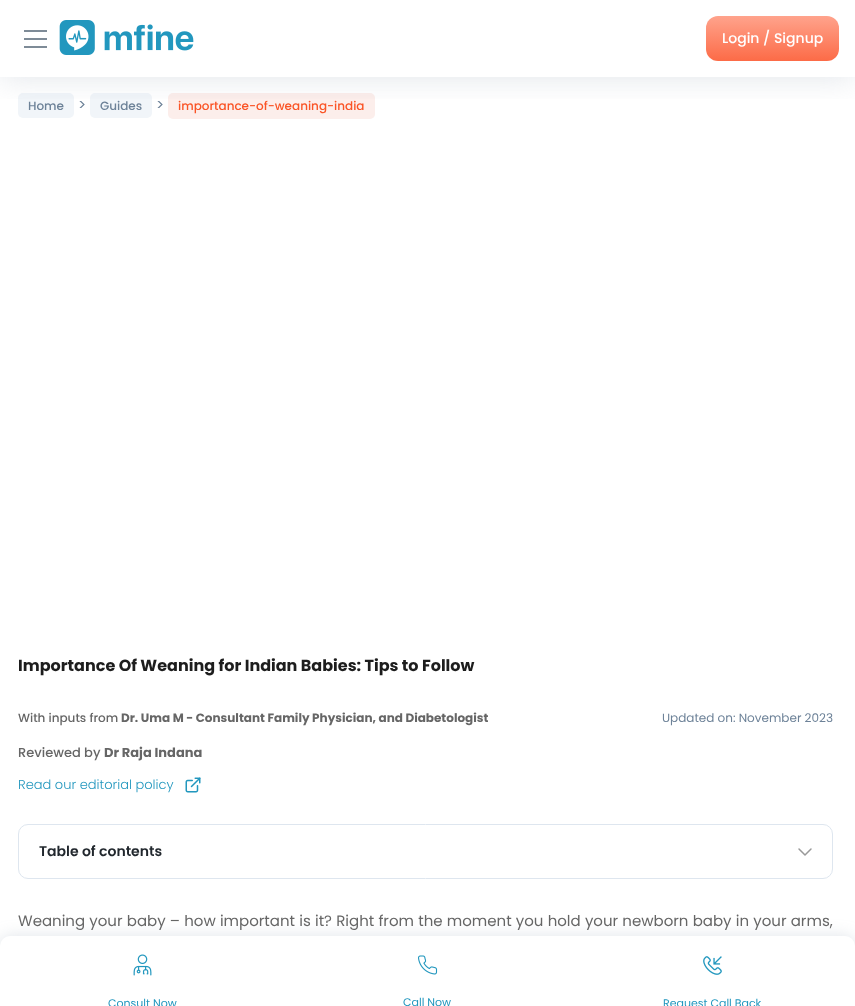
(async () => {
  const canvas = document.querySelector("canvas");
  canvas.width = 855;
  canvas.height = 1006;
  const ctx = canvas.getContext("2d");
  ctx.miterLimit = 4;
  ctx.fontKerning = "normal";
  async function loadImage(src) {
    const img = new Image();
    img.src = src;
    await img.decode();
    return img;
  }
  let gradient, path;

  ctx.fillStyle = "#ffffff";
  ctx.fillRect(0, 0, 855, 1006);
  ctx.fillStyle = "#f1f5f9";
  ctx.beginPath();
  ctx.roundRect(18, 93, 56, 25, 5);
  ctx.fill();
  ctx.beginPath();
  ctx.roundRect(90, 93, 62, 25, 5);
  ctx.fill();
  ctx.fillStyle = "#fceeeb";
  ctx.beginPath();
  ctx.roundRect(168, 93, 207, 26, 5);
  ctx.fill();
  ctx.save();
  ctx.beginPath();
  ctx.rect(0, 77, 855, 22);
  ctx.clip();
  ctx.fillStyle = "rgba(132, 149, 166, 0.25)";
  ctx.filter = "blur(16px)";
  ctx.beginPath();
  ctx.rect(0, 0, 855, 77);
  ctx.fill();
  ctx.filter = "none";
  ctx.restore();
  for (const [x, y, w, h, color] of [
    [24, 30, 23, 2, "#7e8b97"],
    [24, 38, 23, 2, "#7e8b97"],
    [24, 46, 23, 2, "#7e8b97"],
  ]) {
    ctx.fillStyle = color;
    ctx.fillRect(x, y, w, h);
  }
  ctx.drawImage(await loadImage("img/1.png"), 59, 20, 135, 35);
  gradient = ctx.createLinearGradient(773, 16, 773, 61);
  gradient.addColorStop(0, "#ffa38c");
  gradient.addColorStop(1, "#fc6b47");
  ctx.fillStyle = gradient;
  ctx.beginPath();
  ctx.roundRect(706, 16, 133, 45, 12);
  ctx.fill();
  ctx.drawImage(await loadImage("img/2.png"), 185, 777, 16, 16);
  ctx.beginPath();
  ctx.roundRect(18.5, 824.5, 814, 54, 9.5);
  ctx.strokeStyle = "#dee6ef";
  ctx.stroke();
  path = new Path2D("M811 849L805 855L799 849");
  ctx.strokeStyle = "#999999";
  ctx.lineWidth = 1.5;
  ctx.lineCap = "round";
  ctx.lineJoin = "round";
  ctx.stroke(path);
  ctx.fillStyle = "rgba(132, 149, 166, 0.25)";
  ctx.filter = "blur(8px)";
  ctx.beginPath();
  ctx.roundRect(0, 936, 855, 70, 10);
  ctx.fill();
  ctx.filter = "none";
  ctx.fillStyle = "#ffffff";
  ctx.beginPath();
  ctx.roundRect(0, 936, 855, 70, [10, 10, 0, 0]);
  ctx.fill();
  ctx.drawImage(await loadImage("img/3.png"), 133, 954, 19, 22);
  ctx.drawImage(await loadImage("img/4.png"), 418, 955, 20, 20);
  ctx.drawImage(await loadImage("img/5.png"), 703, 956, 19, 19);
  ctx.font = "500 14px Poppins";
  ctx.fillText("Login / Signup", 722, 43);
  ctx.font = "500 12px Poppins";
  ctx.fillStyle = "#6d8298";
  ctx.fillText("Home", 28, 110);
  ctx.font = "15px Poppins";
  ctx.fillText(">", 78, 110);
  ctx.font = "500 12px Poppins";
  ctx.fillText("Guides", 100, 110);
  ctx.font = "15px Poppins";
  ctx.fillText(">", 156, 110);
  ctx.font = "500 12px Poppins";
  ctx.fillStyle = "#fa5426";
  ctx.fillText("importance-of-weaning-india", 178, 110);
  ctx.font = "bold 16px Poppins";
  ctx.fillStyle = "#1d1d1d";
  ctx.fillText("Importance Of Weaning for Indian Babies: Tips to Follow", 18, 671);
  ctx.font = "500 12px Poppins";
  ctx.fillStyle = "#666666";
  ctx.fillText("With inputs from", 18, 722);
  ctx.font = "bold 12px Poppins";
  ctx.fillText("Dr. Uma M - Consultant Family Physician, and Diabetologist", 121, 722);
  ctx.font = "12px Poppins";
  ctx.fillStyle = "#6d8298";
  ctx.fillText("Updated on: November 2023", 662, 722);
  ctx.font = "500 13px Poppins";
  ctx.fillStyle = "#666666";
  ctx.fillText("Reviewed by", 18, 757);
  ctx.font = "bold 13px Poppins";
  ctx.fillText("Dr Raja Indana", 104, 757);
  ctx.font = "300 13px Poppins";
  ctx.fillStyle = "#2297be";
  ctx.fillText("Read our editorial policy", 18, 789);
  ctx.font = "600 14px Poppins";
  ctx.fillStyle = "#21272d";
  ctx.fillText("Table of contents", 39, 856);
  ctx.wordSpacing = "0.2px";
  ctx.font = "15px Poppins";
  ctx.fillStyle = "#666666";
  ctx.fillText("Weaning your baby – how important is it? Right from the moment you hold your newborn baby in your arms,", 18, 926);
  ctx.wordSpacing = "0px";
  ctx.font = "11px Poppins";
  ctx.fillStyle = "#2297be";
  for (const [text, x, y] of [
    ["Consult Now", 108, 1007],
    ["Call Now", 403, 1006],
    ["Request Call Back", 663, 1007],
  ]) {
    ctx.fillText(text, x, y);
  }
})();
